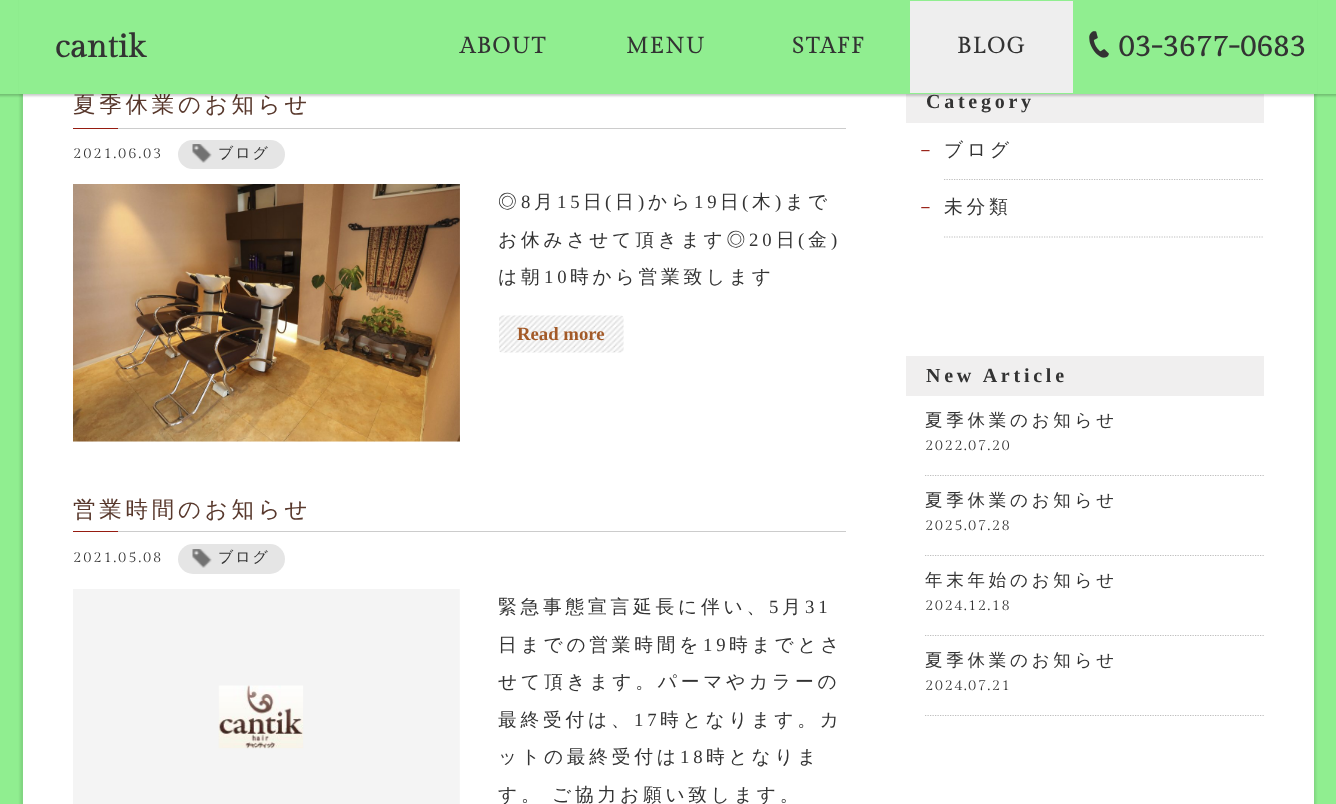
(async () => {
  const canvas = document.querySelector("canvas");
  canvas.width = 1336;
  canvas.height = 804;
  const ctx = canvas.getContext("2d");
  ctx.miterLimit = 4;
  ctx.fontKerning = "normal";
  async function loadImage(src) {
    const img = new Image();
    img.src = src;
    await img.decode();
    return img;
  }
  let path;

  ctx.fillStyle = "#90ee90";
  ctx.fillRect(0, 0, 1336, 804);
  ctx.fillStyle = "rgba(0, 0, 0, 0.1)";
  ctx.filter = "blur(1px)";
  ctx.beginPath();
  ctx.rect(20, -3, 1296, 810);
  ctx.fill();
  ctx.filter = "none";
  for (const [x, y, w, h, color] of [
    [23, 94, 1291, 710, "#ffffff"],
    [118, 128, 728, 1, "#cccccc"],
    [73, 128, 45, 1, "#961b10"],
  ]) {
    ctx.fillStyle = color;
    ctx.fillRect(x, y, w, h);
  }
  ctx.fillStyle = "#e5e5e5";
  ctx.beginPath();
  ctx.roundRect(178, 140, 107, 29, 14.5);
  ctx.fill();
  ctx.drawImage(await loadImage("img/2.png"), 192, 144, 20, 19);
  ctx.drawImage(await loadImage("img/3.png"), 73, 184, 387, 258);
  ctx.drawImage(await loadImage("img/4.png"), 499, 315, 125, 38);
  ctx.fillStyle = "#cccccc";
  ctx.fillRect(118, 531, 728, 1);
  ctx.fillStyle = "#961b10";
  ctx.fillRect(73, 531, 45, 1);
  ctx.fillStyle = "#e5e5e5";
  ctx.beginPath();
  ctx.roundRect(178, 544, 107, 30, 15);
  ctx.fill();
  ctx.drawImage(await loadImage("img/2.png"), 192, 549, 20, 19);
  ctx.drawImage(await loadImage("img/5.png"), 73, 589, 387, 215);
  ctx.fillStyle = "#f0efef";
  ctx.fillRect(906, 94, 358, 29);
  path = new Path2D("M944 179.5H1264");
  ctx.strokeStyle = "#bebebe";
  ctx.lineWidth = 1.2;
  ctx.setLineDash([1.25, 1.25]);
  ctx.stroke(path);
  path = new Path2D("M944 237H1264");
  ctx.stroke(path);
  ctx.fillRect(906, 356, 358, 40);
  path = new Path2D("M925 475.5H1264");
  ctx.stroke(path);
  path = new Path2D("M925 555.5H1264");
  ctx.stroke(path);
  path = new Path2D("M925 635.5H1264");
  ctx.stroke(path);
  path = new Path2D("M925 715.5H1264");
  ctx.stroke(path);
  ctx.letterSpacing = "3.75px";
  ctx.font = "500 22.5px WenQuanYi Zen Hei";
  ctx.fillStyle = "#58382c";
  ctx.fillText("夏季休業のお知らせ", 73, 112);
  ctx.fillStyle = "#90ee90";
  ctx.fillRect(19, 0, 1298, 94);
  ctx.save();
  path = new Path2D("M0 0H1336V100H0ZM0 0H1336V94H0Z");
  ctx.clip(path, "evenodd");
  ctx.fillStyle = "rgba(0, 0, 0, 0.2)";
  ctx.filter = "blur(1px)";
  ctx.beginPath();
  ctx.rect(-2, -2, 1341, 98);
  ctx.fill();
  ctx.filter = "none";
  ctx.restore();
  ctx.drawImage(await loadImage("img/1.png"), 1089, 31, 20, 27);
  ctx.fillStyle = "#eeeeee";
  ctx.fillRect(910, 1, 163, 92);
  ctx.letterSpacing = "1.9px";
  ctx.font = "bold 22.5px Gilda Display";
  ctx.fillStyle = "#333333";
  for (const [text, x, y] of [
    ["BLOG", 957, 53],
    ["STAFF", 792, 53],
    ["MENU", 626, 53],
    ["ABOUT", 460, 53],
  ]) {
    ctx.fillText(text, x, y);
  }
  ctx.letterSpacing = "0px";
  ctx.font = "bold 32.5px Gilda Display";
  ctx.fillText("cantik", 55, 57);
  ctx.font = "bold 30px Gilda Display";
  ctx.fillText("03-3677-0683", 1118, 56);
  ctx.letterSpacing = "1.9px";
  ctx.font = "15px Gilda Display";
  ctx.fillText("2021.06.03", 73, 158);
  ctx.font = "500 15px WenQuanYi Zen Hei";
  ctx.fillText("ブログ", 218, 158);
  ctx.letterSpacing = "3.75px";
  ctx.font = "500 18.75px WenQuanYi Zen Hei";
  ctx.fillText("◎", 498, 208);
  ctx.font = "18.75px Liberation Serif";
  ctx.fillText("8", 521, 208);
  ctx.font = "500 18.75px WenQuanYi Zen Hei";
  ctx.fillText("月", 534, 208);
  ctx.font = "18.75px Liberation Serif";
  ctx.fillText("15", 557, 208);
  ctx.font = "500 18.75px WenQuanYi Zen Hei";
  ctx.fillText("日", 583, 208);
  ctx.font = "18.75px Liberation Serif";
  ctx.fillText("(", 605, 208);
  ctx.font = "500 18.75px WenQuanYi Zen Hei";
  ctx.fillText("日", 615, 208);
  ctx.font = "18.75px Liberation Serif";
  ctx.fillText(")", 638, 208);
  ctx.font = "500 18.75px WenQuanYi Zen Hei";
  ctx.fillText("から", 648, 208);
  ctx.font = "18.75px Liberation Serif";
  ctx.fillText("19", 694, 208);
  ctx.font = "500 18.75px WenQuanYi Zen Hei";
  ctx.fillText("日", 720, 208);
  ctx.font = "18.75px Liberation Serif";
  ctx.fillText("(", 742, 208);
  ctx.font = "500 18.75px WenQuanYi Zen Hei";
  ctx.fillText("木", 752, 208);
  ctx.font = "18.75px Liberation Serif";
  ctx.fillText(")", 775, 208);
  ctx.font = "500 18.75px WenQuanYi Zen Hei";
  ctx.fillText("まで", 785, 208);
  ctx.fillText("お休みさせて頂きます◎", 498, 246);
  ctx.font = "18.75px Liberation Serif";
  ctx.fillText("20", 749, 246);
  ctx.font = "500 18.75px WenQuanYi Zen Hei";
  ctx.fillText("日", 776, 246);
  ctx.font = "18.75px Liberation Serif";
  ctx.fillText("(", 798, 246);
  ctx.font = "500 18.75px WenQuanYi Zen Hei";
  ctx.fillText("金", 808, 246);
  ctx.font = "18.75px Liberation Serif";
  ctx.fillText(")", 831, 246);
  ctx.font = "500 18.75px WenQuanYi Zen Hei";
  ctx.fillText("は朝", 498, 283);
  ctx.font = "18.75px Liberation Serif";
  ctx.fillText("10", 544, 283);
  ctx.font = "500 18.75px WenQuanYi Zen Hei";
  ctx.fillText("時から営業致します", 570, 283);
  ctx.letterSpacing = "0px";
  ctx.font = "bold 18.75px Liberation Serif";
  ctx.fillStyle = "#a35a28";
  ctx.fillText("Read more", 517, 340);
  ctx.letterSpacing = "3.75px";
  ctx.font = "500 22.5px WenQuanYi Zen Hei";
  ctx.fillStyle = "#58382c";
  ctx.fillText("営業時間のお知らせ", 73, 517);
  ctx.letterSpacing = "1.9px";
  ctx.font = "15px Gilda Display";
  ctx.fillStyle = "#333333";
  ctx.fillText("2021.05.08", 73, 562);
  ctx.font = "500 15px WenQuanYi Zen Hei";
  ctx.fillText("ブログ", 218, 562);
  ctx.letterSpacing = "3.75px";
  ctx.font = "500 18.75px WenQuanYi Zen Hei";
  ctx.fillText("緊急事態宣言延長に伴い、", 498, 613);
  ctx.font = "18.75px Liberation Serif";
  ctx.fillText("5", 769, 613);
  ctx.font = "500 18.75px WenQuanYi Zen Hei";
  ctx.fillText("月", 782, 613);
  ctx.font = "18.75px Liberation Serif";
  ctx.fillText("31", 805, 613);
  ctx.font = "500 18.75px WenQuanYi Zen Hei";
  ctx.fillText("日までの営業時間を", 498, 651);
  ctx.font = "18.75px Liberation Serif";
  ctx.fillText("19", 703, 651);
  ctx.font = "500 18.75px WenQuanYi Zen Hei";
  for (const [text, x, y] of [
    ["時までとさ", 729, 651],
    ["せて頂きます。パーマやカラーの", 498, 688],
    ["最終受付は、", 498, 726],
  ]) {
    ctx.fillText(text, x, y);
  }
  ctx.font = "18.75px Liberation Serif";
  ctx.fillText("17", 634, 726);
  ctx.font = "500 18.75px WenQuanYi Zen Hei";
  ctx.fillText("時となります。カ", 660, 726);
  ctx.fillText("ットの最終受付は", 498, 763);
  ctx.font = "18.75px Liberation Serif";
  ctx.fillText("18", 680, 763);
  ctx.font = "500 18.75px WenQuanYi Zen Hei";
  for (const [text, x, y] of [
    ["時となりま", 706, 763],
    ["す。", 498, 801],
    ["ご協力お願い致します。", 552, 801],
  ]) {
    ctx.fillText(text, x, y);
  }
  ctx.font = "bold 20px Liberation Serif";
  ctx.fillText("Category", 926, 108);
  ctx.font = "500 18.75px WenQuanYi Zen Hei";
  ctx.fillStyle = "#961b10";
  ctx.fillText("－", 916, 156);
  ctx.fillStyle = "#333333";
  ctx.fillText("ブログ", 944, 156);
  ctx.fillStyle = "#961b10";
  ctx.fillText("－", 916, 213);
  ctx.fillStyle = "#333333";
  ctx.fillText("未分類", 944, 213);
  ctx.font = "bold 20px Liberation Serif";
  ctx.fillText("New Article", 926, 382);
  ctx.font = "500 17.5px WenQuanYi Zen Hei";
  ctx.fillText("夏季休業のお知らせ", 925, 426);
  ctx.letterSpacing = "1.5px";
  ctx.font = "15px Gilda Display";
  ctx.fillText("2022.07.20", 925, 450);
  ctx.letterSpacing = "3.75px";
  ctx.font = "500 17.5px WenQuanYi Zen Hei";
  ctx.fillText("夏季休業のお知らせ", 925, 506);
  ctx.letterSpacing = "1.5px";
  ctx.font = "15px Gilda Display";
  ctx.fillText("2025.07.28", 925, 530);
  ctx.letterSpacing = "3.75px";
  ctx.font = "500 17.5px WenQuanYi Zen Hei";
  ctx.fillText("年末年始のお知らせ", 925, 586);
  ctx.letterSpacing = "1.5px";
  ctx.font = "15px Gilda Display";
  ctx.fillText("2024.12.18", 925, 610);
  ctx.letterSpacing = "3.75px";
  ctx.font = "500 17.5px WenQuanYi Zen Hei";
  ctx.fillText("夏季休業のお知らせ", 925, 666);
  ctx.letterSpacing = "1.5px";
  ctx.font = "15px Gilda Display";
  ctx.fillText("2024.07.21", 925, 690);
})();
